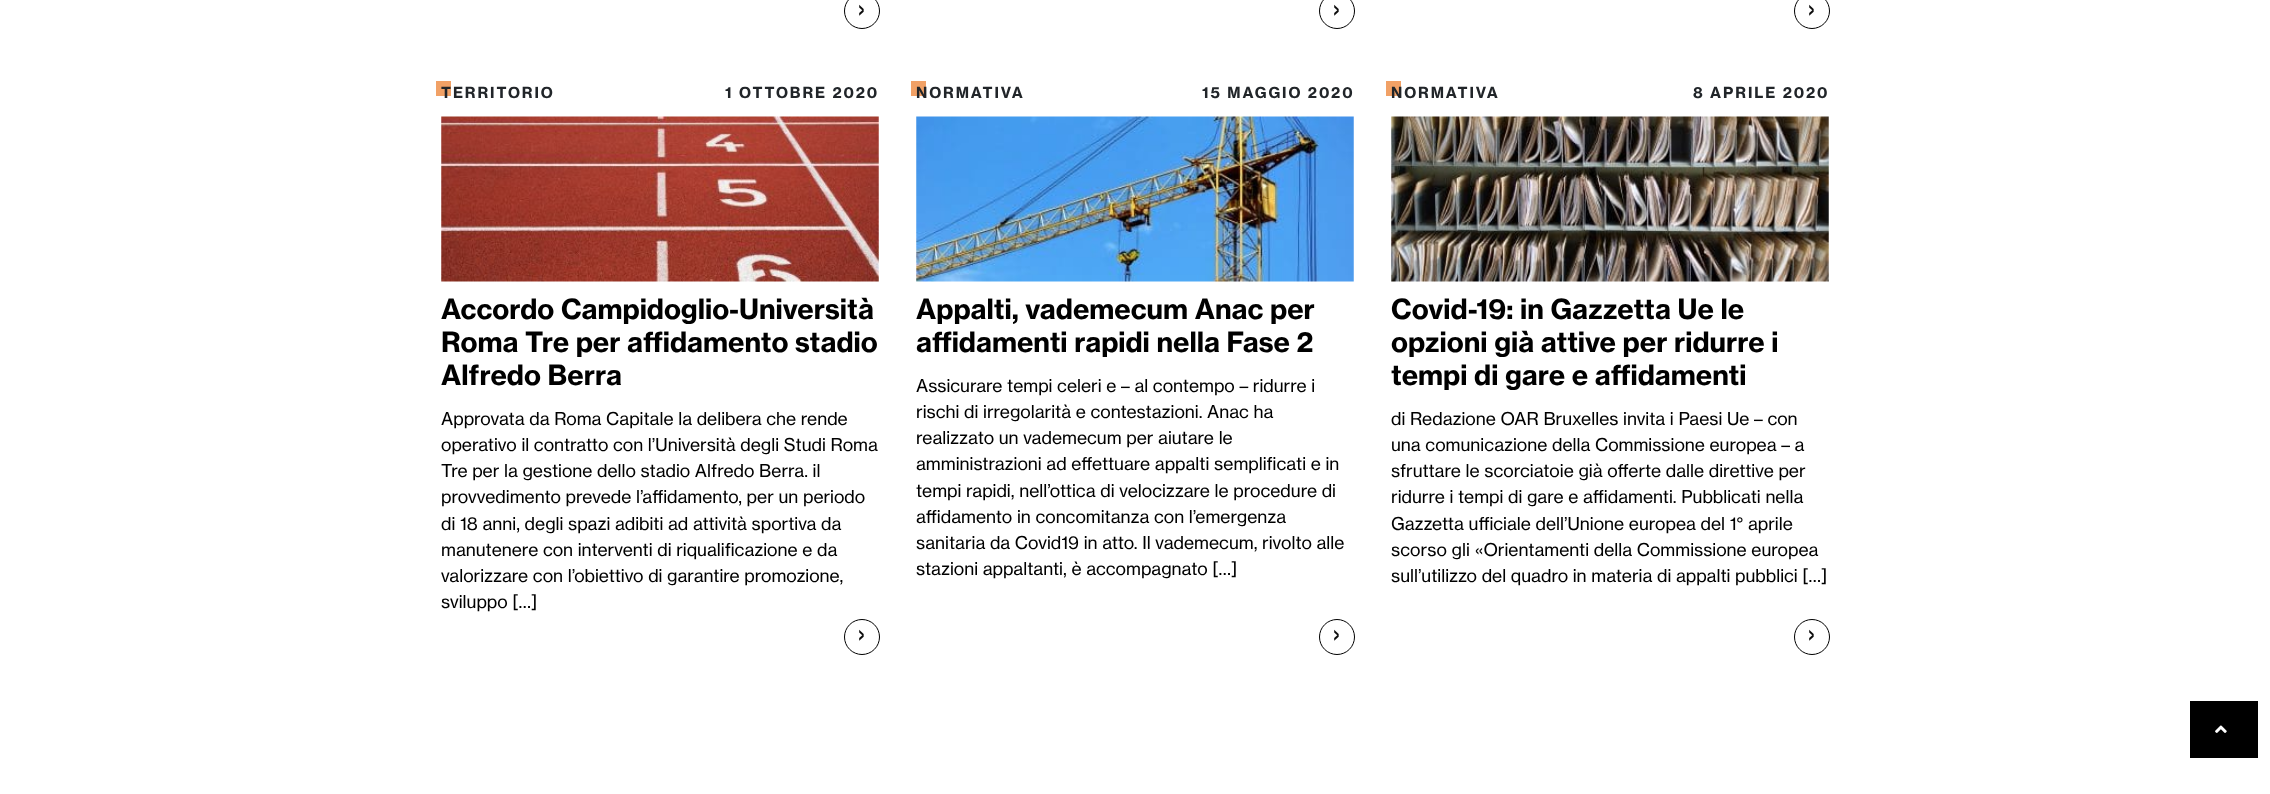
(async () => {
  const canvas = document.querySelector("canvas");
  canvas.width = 2270;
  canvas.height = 794;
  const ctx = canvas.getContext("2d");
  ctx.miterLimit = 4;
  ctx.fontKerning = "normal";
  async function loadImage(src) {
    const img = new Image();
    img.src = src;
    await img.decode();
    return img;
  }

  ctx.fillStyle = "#ffffff";
  ctx.fillRect(0, 0, 2270, 794);
  ctx.beginPath();
  ctx.arc(862, 11, 17.5, 0, Math.PI * 2);
  ctx.strokeStyle = "#000000";
  ctx.stroke();
  ctx.beginPath();
  ctx.arc(1337, 11, 17.5, 0, Math.PI * 2);
  ctx.stroke();
  ctx.beginPath();
  ctx.arc(1812, 11, 17.5, 0, Math.PI * 2);
  ctx.stroke();
  ctx.fillStyle = "#f1a166";
  ctx.fillRect(436, 81, 15, 15);
  ctx.drawImage(await loadImage("img/1.png"), 441, 116, 438, 166);
  ctx.beginPath();
  ctx.arc(862, 637, 17.5, 0, Math.PI * 2);
  ctx.stroke();
  ctx.fillRect(911, 81, 15, 15);
  ctx.drawImage(await loadImage("img/2.png"), 916, 116, 438, 166);
  ctx.beginPath();
  ctx.arc(1337, 637, 17.5, 0, Math.PI * 2);
  ctx.stroke();
  ctx.fillRect(1386, 81, 15, 15);
  ctx.drawImage(await loadImage("img/3.png"), 1391, 116, 438, 166);
  ctx.beginPath();
  ctx.arc(1812, 637, 17.5, 0, Math.PI * 2);
  ctx.stroke();
  ctx.fillStyle = "#000000";
  ctx.fillRect(2190, 701, 68, 57);
  ctx.drawImage(await loadImage("img/4.png"), 2215, 725, 12, 8);
  ctx.font = "27.5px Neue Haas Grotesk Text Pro";
  ctx.fillStyle = "#0c0c0c";
  for (const [text, x, y] of [
    ["›", 857, 18],
    ["›", 1332, 18],
    ["›", 1807, 18],
  ]) {
    ctx.fillText(text, x, y);
  }
  ctx.letterSpacing = "1.9px";
  ctx.font = "bold 15px Neue Haas Grotesk Text Pro";
  ctx.fillStyle = "#212529";
  ctx.fillText("TERRITORIO", 441, 98);
  ctx.fillText("1 OTTOBRE 2020", 725, 98);
  ctx.letterSpacing = "0px";
  ctx.font = "bold 27.5px Neue Haas Grotesk Text Pro";
  ctx.fillStyle = "#000000";
  for (const [text, x, y] of [
    ["Accordo Campidoglio-Università", 441, 319],
    ["Roma Tre per affidamento stadio", 441, 352],
    ["Alfredo Berra", 441, 385],
  ]) {
    ctx.fillText(text, x, y);
  }
  ctx.font = "17.5px Neue Haas Grotesk Text Pro";
  for (const [text, x, y] of [
    ["Approvata da Roma Capitale la delibera che rende", 441, 425],
    ["operativo il contratto con l’Università degli Studi Roma", 441, 451],
    ["Tre per la gestione dello stadio Alfredo Berra. il", 441, 477],
    ["provvedimento prevede l’affidamento, per un periodo", 441, 503],
    ["di 18 anni, degli spazi adibiti ad attività sportiva da", 441, 530],
    ["manutenere con interventi di riqualificazione e da", 441, 556],
    ["valorizzare con l’obiettivo di garantire promozione,", 441, 582],
    ["sviluppo […]", 441, 608],
  ]) {
    ctx.fillText(text, x, y);
  }
  ctx.font = "27.5px Neue Haas Grotesk Text Pro";
  ctx.fillStyle = "#0c0c0c";
  ctx.fillText("›", 857, 643);
  ctx.letterSpacing = "1.9px";
  ctx.font = "bold 15px Neue Haas Grotesk Text Pro";
  ctx.fillStyle = "#212529";
  ctx.fillText("NORMATIVA", 916, 98);
  ctx.fillText("15 MAGGIO 2020", 1202, 98);
  ctx.letterSpacing = "0px";
  ctx.font = "bold 27.5px Neue Haas Grotesk Text Pro";
  ctx.fillStyle = "#000000";
  ctx.fillText("Appalti, vademecum Anac per", 916, 319);
  ctx.fillText("affidamenti rapidi nella Fase 2", 916, 352);
  ctx.font = "17.5px Neue Haas Grotesk Text Pro";
  for (const [text, x, y] of [
    ["Assicurare tempi celeri e – al contempo – ridurre i", 916, 392],
    ["rischi di irregolarità e contestazioni. Anac ha", 916, 418],
    ["realizzato un vademecum per aiutare le", 916, 444],
    ["amministrazioni ad effettuare appalti semplificati e in", 916, 470],
    ["tempi rapidi, nell’ottica di velocizzare le procedure di", 916, 497],
    ["affidamento in concomitanza con l’emergenza", 916, 523],
    ["sanitaria da Covid19 in atto. Il vademecum, rivolto alle", 916, 549],
    ["stazioni appaltanti, è accompagnato […]", 916, 575],
  ]) {
    ctx.fillText(text, x, y);
  }
  ctx.font = "27.5px Neue Haas Grotesk Text Pro";
  ctx.fillStyle = "#0c0c0c";
  ctx.fillText("›", 1332, 643);
  ctx.letterSpacing = "1.9px";
  ctx.font = "bold 15px Neue Haas Grotesk Text Pro";
  ctx.fillStyle = "#212529";
  ctx.fillText("NORMATIVA", 1391, 98);
  ctx.fillText("8 APRILE 2020", 1693, 98);
  ctx.letterSpacing = "0px";
  ctx.font = "bold 27.5px Neue Haas Grotesk Text Pro";
  ctx.fillStyle = "#000000";
  for (const [text, x, y] of [
    ["Covid-19: in Gazzetta Ue le", 1391, 319],
    ["opzioni già attive per ridurre i", 1391, 352],
    ["tempi di gare e affidamenti", 1391, 385],
  ]) {
    ctx.fillText(text, x, y);
  }
  ctx.font = "17.5px Neue Haas Grotesk Text Pro";
  for (const [text, x, y] of [
    ["di Redazione OAR Bruxelles invita i Paesi Ue – con", 1391, 425],
    ["una comunicazione della Commissione europea – a", 1391, 451],
    ["sfruttare le scorciatoie già offerte dalle direttive per", 1391, 477],
    ["ridurre i tempi di gare e affidamenti. Pubblicati nella", 1391, 503],
    ["Gazzetta ufficiale dell’Unione europea del 1° aprile", 1391, 530],
    ["scorso gli «Orientamenti della Commissione europea", 1391, 556],
    ["sull’utilizzo del quadro in materia di appalti pubblici […]", 1391, 582],
  ]) {
    ctx.fillText(text, x, y);
  }
  ctx.font = "27.5px Neue Haas Grotesk Text Pro";
  ctx.fillStyle = "#0c0c0c";
  ctx.fillText("›", 1807, 643);
})();
